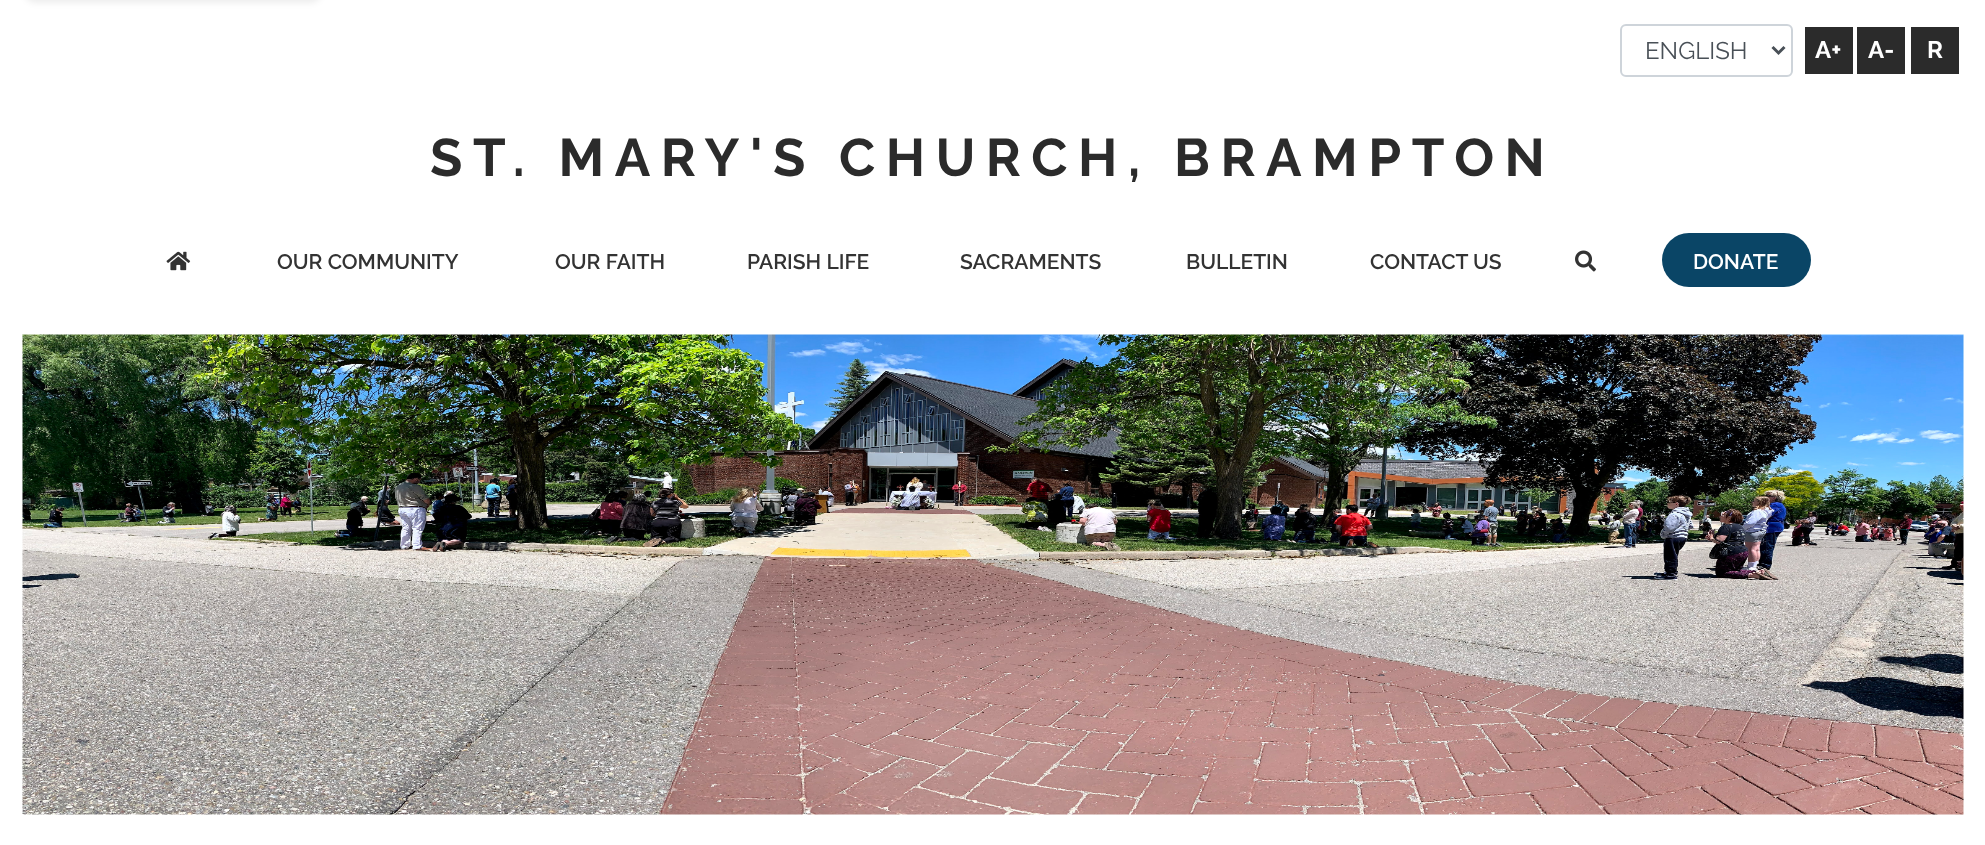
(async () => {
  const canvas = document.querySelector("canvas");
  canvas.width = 1985;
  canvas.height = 845;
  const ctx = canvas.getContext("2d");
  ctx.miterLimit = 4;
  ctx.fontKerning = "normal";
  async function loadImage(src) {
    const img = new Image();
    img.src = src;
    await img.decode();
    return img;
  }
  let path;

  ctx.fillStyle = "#ffffff";
  ctx.fillRect(0, 0, 1985, 845);
  ctx.fillStyle = "rgba(0, 0, 0, 0.07)";
  ctx.filter = "blur(3px)";
  ctx.beginPath();
  ctx.roundRect(23, -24, 300, 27, 15);
  ctx.fill();
  ctx.filter = "none";
  ctx.beginPath();
  ctx.roundRect(1621, 25, 171, 51, 5);
  ctx.strokeStyle = "#ced4da";
  ctx.lineWidth = 2;
  ctx.stroke();
  path = new Path2D("M1772.5 47L1778.5 53L1784.5 47");
  ctx.strokeStyle = "#495057";
  ctx.lineWidth = 3;
  ctx.stroke(path);
  for (const [x, y, w, h, color] of [
    [1805, 27, 48, 47, "#2b2b2b"],
    [1857, 27, 48, 47, "#2b2b2b"],
    [1911, 27, 48, 47, "#2b2b2b"],
  ]) {
    ctx.fillStyle = color;
    ctx.fillRect(x, y, w, h);
  }
  ctx.drawImage(await loadImage("img/1.png"), 166, 251, 25, 20);
  ctx.drawImage(await loadImage("img/2.png"), 1575, 250, 21, 22);
  ctx.fillStyle = "#0a4566";
  ctx.beginPath();
  ctx.roundRect(1662, 233, 149, 54, 27);
  ctx.fill();
  ctx.drawImage(await loadImage("img/3.png"), 22, 334, 1942, 481);
  ctx.font = "24px Raleway";
  ctx.fillStyle = "#495057";
  ctx.fillText("ENGLISH", 1645, 59);
  ctx.font = "bold 24px Raleway";
  ctx.fillStyle = "#ffffff";
  for (const [text, x, y] of [
    ["A+", 1815, 58],
    ["A-", 1868, 58],
    ["R", 1927, 58],
  ]) {
    ctx.fillText(text, x, y);
  }
  ctx.letterSpacing = "10.55px";
  ctx.font = "bold 52.8px Raleway";
  ctx.fillStyle = "#2b2b2b";
  ctx.fillText("ST. MARY'S CHURCH, BRAMPTON", 430, 176);
  ctx.letterSpacing = "0px";
  ctx.font = "600 21px Raleway";
  ctx.fillStyle = "#333333";
  for (const [text, x, y] of [
    ["OUR COMMUNITY", 277, 269],
    ["OUR FAITH", 555, 269],
    ["PARISH LIFE", 747, 269],
    ["SACRAMENTS", 960, 269],
    ["BULLETIN", 1186, 269],
    ["CONTACT US", 1370, 269],
  ]) {
    ctx.fillText(text, x, y);
  }
  ctx.fillStyle = "#ffffff";
  ctx.fillText("DONATE", 1693, 269);
})();
